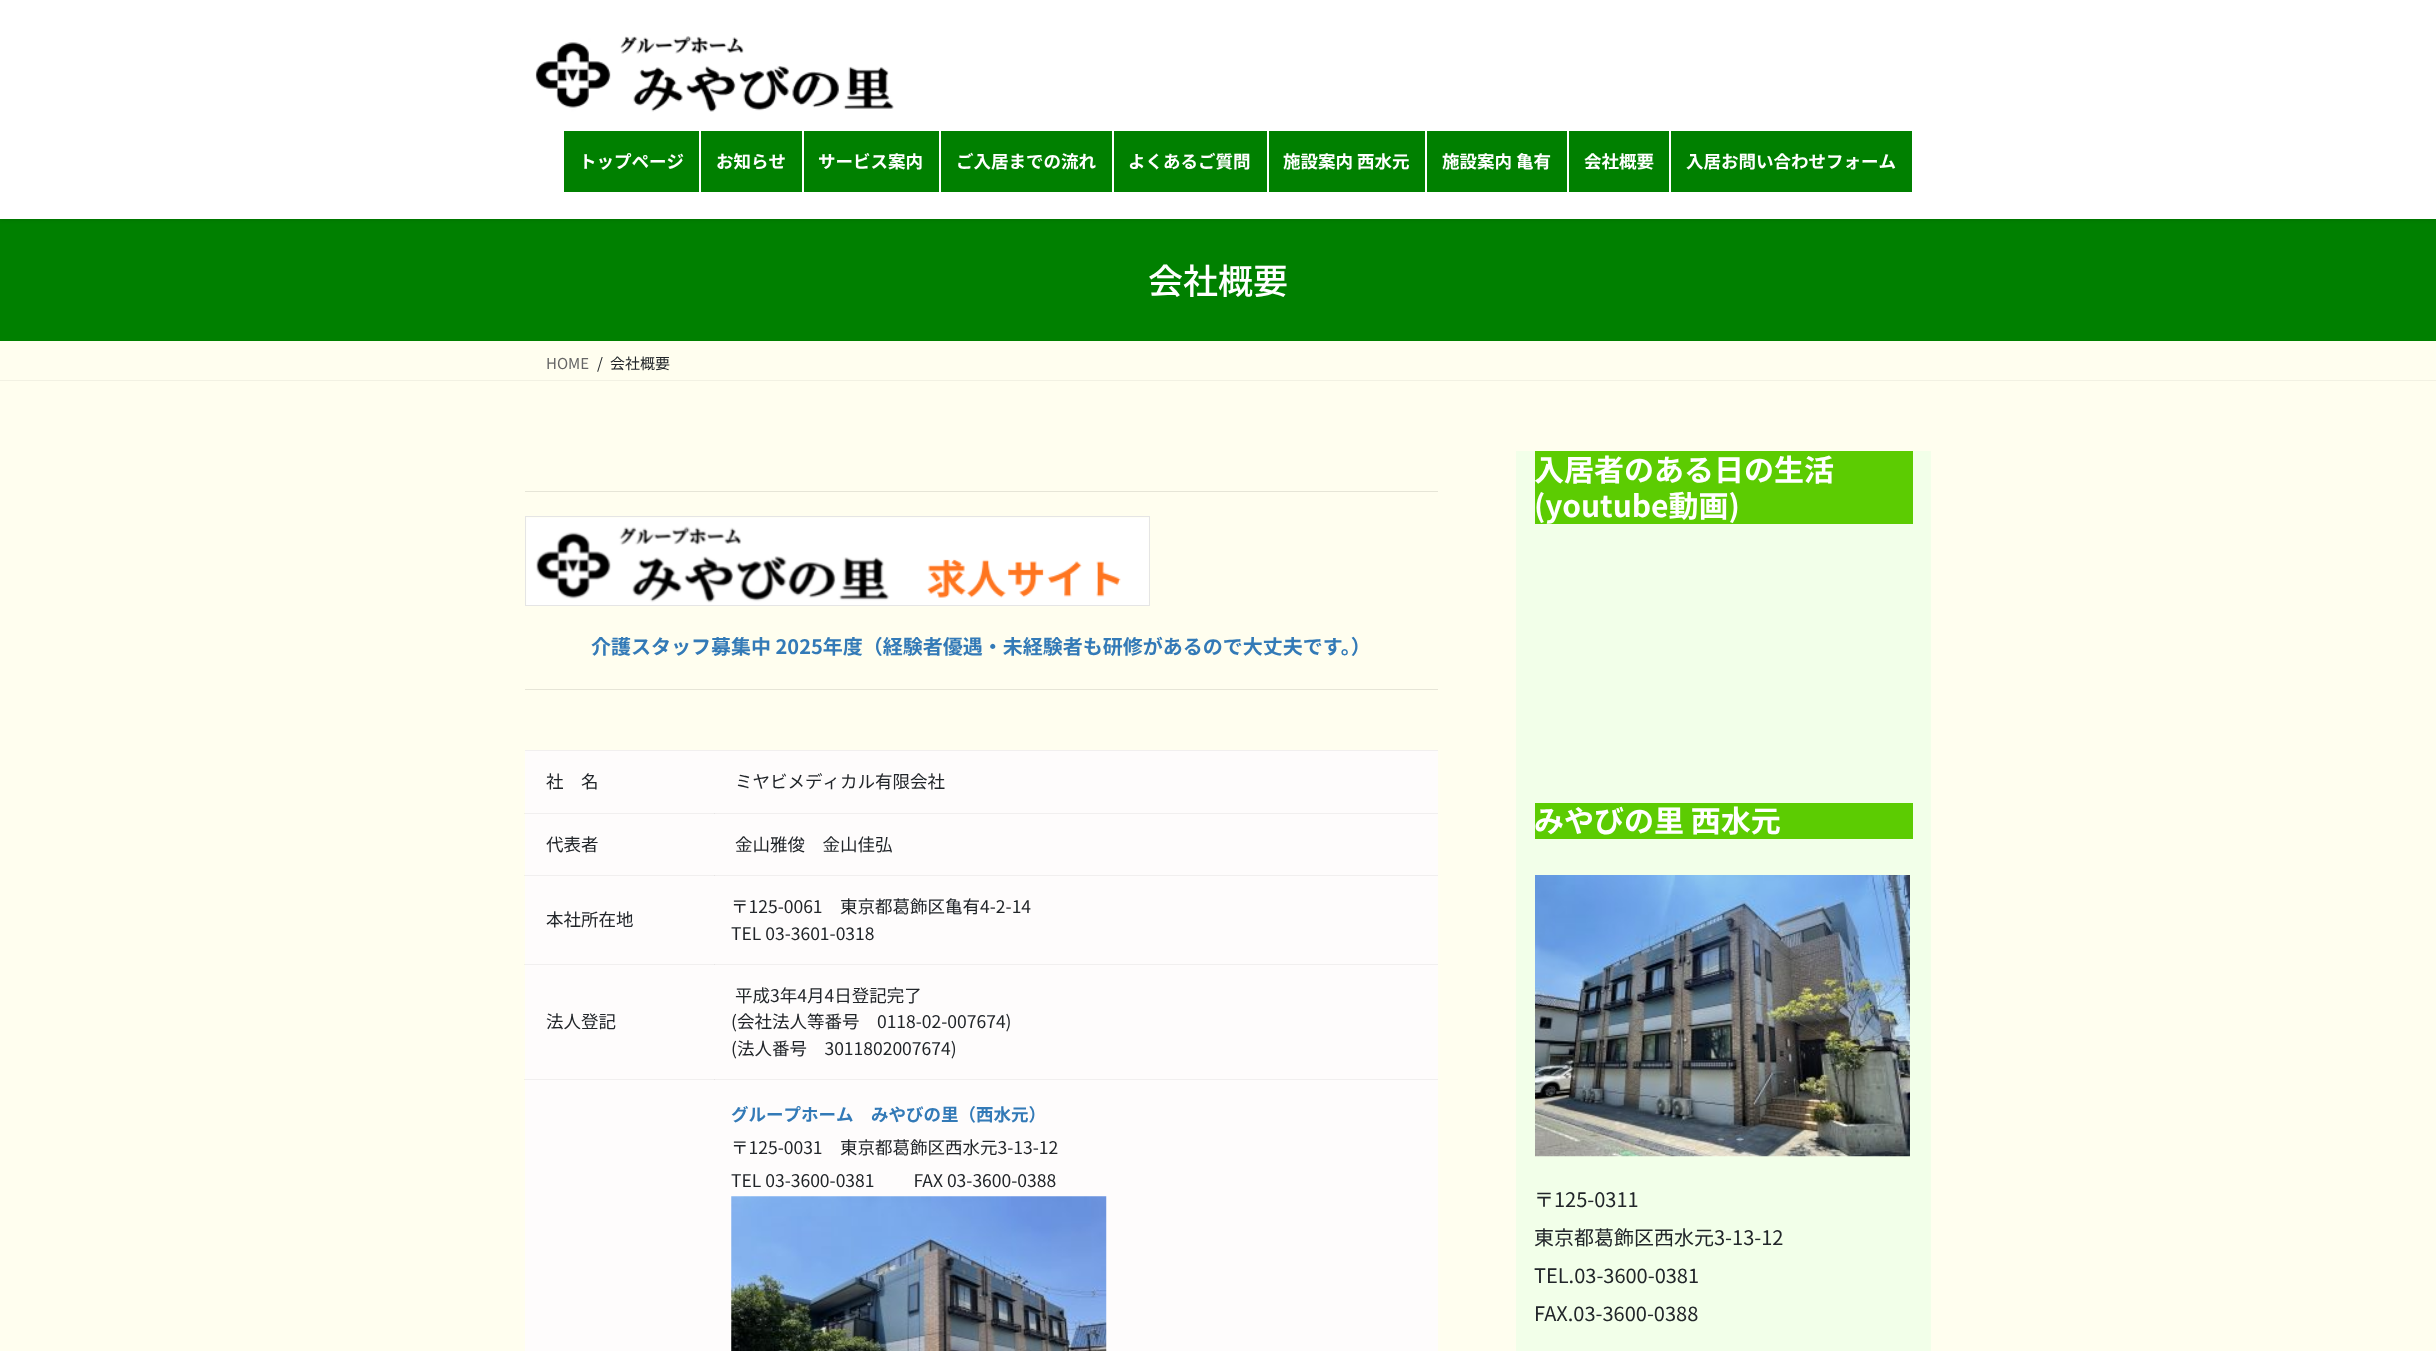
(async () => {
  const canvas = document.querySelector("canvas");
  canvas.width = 2436;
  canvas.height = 1351;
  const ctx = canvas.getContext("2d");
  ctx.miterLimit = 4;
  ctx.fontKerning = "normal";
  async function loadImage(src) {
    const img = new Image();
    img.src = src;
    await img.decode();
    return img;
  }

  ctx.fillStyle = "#fffeef";
  ctx.fillRect(0, 0, 2436, 1351);
  for (const [x, y, w, h, color] of [
    [524, 813, 1, 1, "#f2f1e3"],
    [524, 875, 1, 1, "#f2f1e3"],
    [524, 964, 1, 1, "#f2f1e3"],
    [524, 1079, 1, 1, "#f2f1e3"],
    [0, 219, 2436, 122, "#008000"],
  ]) {
    ctx.fillStyle = color;
    ctx.fillRect(x, y, w, h);
  }
  ctx.fillStyle = "rgba(0, 0, 0, 0.1)";
  ctx.filter = "blur(2px)";
  ctx.beginPath();
  ctx.rect(0, 1, 2436, 219);
  ctx.fill();
  ctx.filter = "none";
  ctx.fillStyle = "#ffffff";
  ctx.fillRect(0, 0, 2436, 219);
  ctx.drawImage(await loadImage("img/1.png"), 535, 36, 359, 76);
  for (const [x, y, w, h, color] of [
    [564, 131, 135, 61, "#008000"],
    [701, 131, 101, 61, "#008000"],
    [804, 131, 135, 61, "#008000"],
    [941, 131, 171, 61, "#008000"],
    [1114, 131, 153, 61, "#008000"],
    [1269, 131, 156, 61, "#008000"],
    [1427, 131, 140, 61, "#008000"],
    [1569, 131, 100, 61, "#008000"],
    [1671, 131, 241, 61, "#008000"],
    [0, 380, 2436, 1, "#f2f1e3"],
    [525, 491, 913, 1, "#e6e5d7"],
  ]) {
    ctx.fillStyle = color;
    ctx.fillRect(x, y, w, h);
  }
  ctx.strokeStyle = "#e5e5e5";
  ctx.strokeRect(525.5, 516.5, 624, 89);
  ctx.drawImage(await loadImage("img/2.png"), 526, 517, 623, 88);
  for (const [x, y, w, h, color] of [
    [525, 689, 913, 1, "#e6e5d7"],
    [525, 750, 913, 1, "#f1efef"],
    [525, 751, 913, 62, "#fefcfc"],
    [525, 813, 913, 1, "#f1efef"],
    [714, 813, 1, 1, "#e5e3e3"],
    [525, 814, 913, 61, "#fefcfc"],
    [525, 875, 913, 1, "#f1efef"],
    [714, 875, 1, 1, "#e5e3e3"],
    [525, 876, 913, 88, "#fefcfc"],
    [525, 964, 913, 1, "#f1efef"],
    [714, 964, 1, 1, "#e5e3e3"],
    [525, 965, 913, 114, "#fefcfc"],
    [525, 1079, 913, 1, "#f1efef"],
    [714, 1079, 1, 1, "#e5e3e3"],
    [525, 1080, 913, 271, "#fefcfc"],
  ]) {
    ctx.fillStyle = color;
    ctx.fillRect(x, y, w, h);
  }
  ctx.drawImage(await loadImage("img/3.png"), 731, 1196, 376, 155);
  for (const [x, y, w, h, color] of [
    [1516, 451, 415, 900, "#f2ffe9"],
    [1535, 451, 378, 73, "#5ccc02"],
    [1535, 803, 378, 36, "#5ccc02"],
  ]) {
    ctx.fillStyle = color;
    ctx.fillRect(x, y, w, h);
  }
  ctx.drawImage(await loadImage("img/4.png"), 1535, 875, 375, 282);
  ctx.font = "bold 17.5px Noto Sans JP";
  ctx.fillStyle = "#ffffff";
  for (const [text, x, y] of [
    ["トップページ", 579, 168],
    ["お知らせ", 716, 168],
    ["サービス案内", 818, 168],
    ["ご入居までの流れ", 956, 168],
    ["よくあるご質問", 1128, 168],
    ["施設案内 西水元", 1283, 168],
    ["施設案内 亀有", 1442, 168],
    ["会社概要", 1584, 168],
    ["入居お問い合わせフォーム", 1686, 168],
  ]) {
    ctx.fillText(text, x, y);
  }
  ctx.font = "500 35px Noto Sans JP";
  ctx.fillText("会社概要", 1148, 294);
  ctx.font = "15px Noto Sans JP";
  ctx.fillStyle = "#666666";
  ctx.fillText("HOME", 546, 369);
  ctx.fillStyle = "#212529";
  ctx.fillText("/", 597, 369);
  ctx.fillText("会社概要", 610, 369);
  ctx.font = "bold 20px Noto Sans JP";
  ctx.fillStyle = "#337ab7";
  ctx.fillText("介護スタッフ募集中 2025年度（経験者優遇・未経験者も研修があるので大丈夫です。）", 591, 654);
  ctx.font = "17.5px Noto Sans JP";
  ctx.fillStyle = "#212529";
  for (const [text, x, y] of [
    ["社　名", 546, 788],
    ["ミヤビメディカル有限会社", 735, 788],
    ["代表者", 546, 851],
    ["金山雅俊　金山佳弘", 735, 851],
    ["本社所在地", 546, 926],
    ["〒125-0061　東京都葛飾区亀有4-2-14", 731, 913],
    ["TEL 03-3601-0318", 731, 940],
    ["法人登記", 546, 1028],
    ["平成3年4月4日登記完了", 735, 1002],
    ["(会社法人等番号　0118-02-007674)", 731, 1028],
    ["(法人番号　3011802007674)", 731, 1055],
  ]) {
    ctx.fillText(text, x, y);
  }
  ctx.font = "bold 17.5px Noto Sans JP";
  ctx.fillStyle = "#337ab7";
  ctx.fillText("グループホーム　みやびの里（西水元）", 731, 1121);
  ctx.font = "17.5px Noto Sans JP";
  ctx.fillStyle = "#212529";
  ctx.fillText("〒125-0031　東京都葛飾区西水元3-13-12", 731, 1154);
  ctx.fillText("TEL 03-3600-0381 　　FAX 03-3600-0388", 731, 1187);
  ctx.font = "bold 30px Noto Sans JP";
  ctx.fillStyle = "#ffffff";
  for (const [text, x, y] of [
    ["入居者のある日の生活", 1534, 481],
    ["(youtube動画)", 1534, 517],
    ["みやびの里 西水元", 1534, 832],
  ]) {
    ctx.fillText(text, x, y);
  }
  ctx.font = "20px Noto Sans JP";
  ctx.fillStyle = "#212529";
  for (const [text, x, y] of [
    ["〒125-0311", 1534, 1207],
    ["東京都葛飾区西水元3-13-12", 1534, 1245],
    ["TEL.03-3600-0381", 1534, 1283],
    ["FAX.03-3600-0388", 1534, 1321],
  ]) {
    ctx.fillText(text, x, y);
  }
})();
